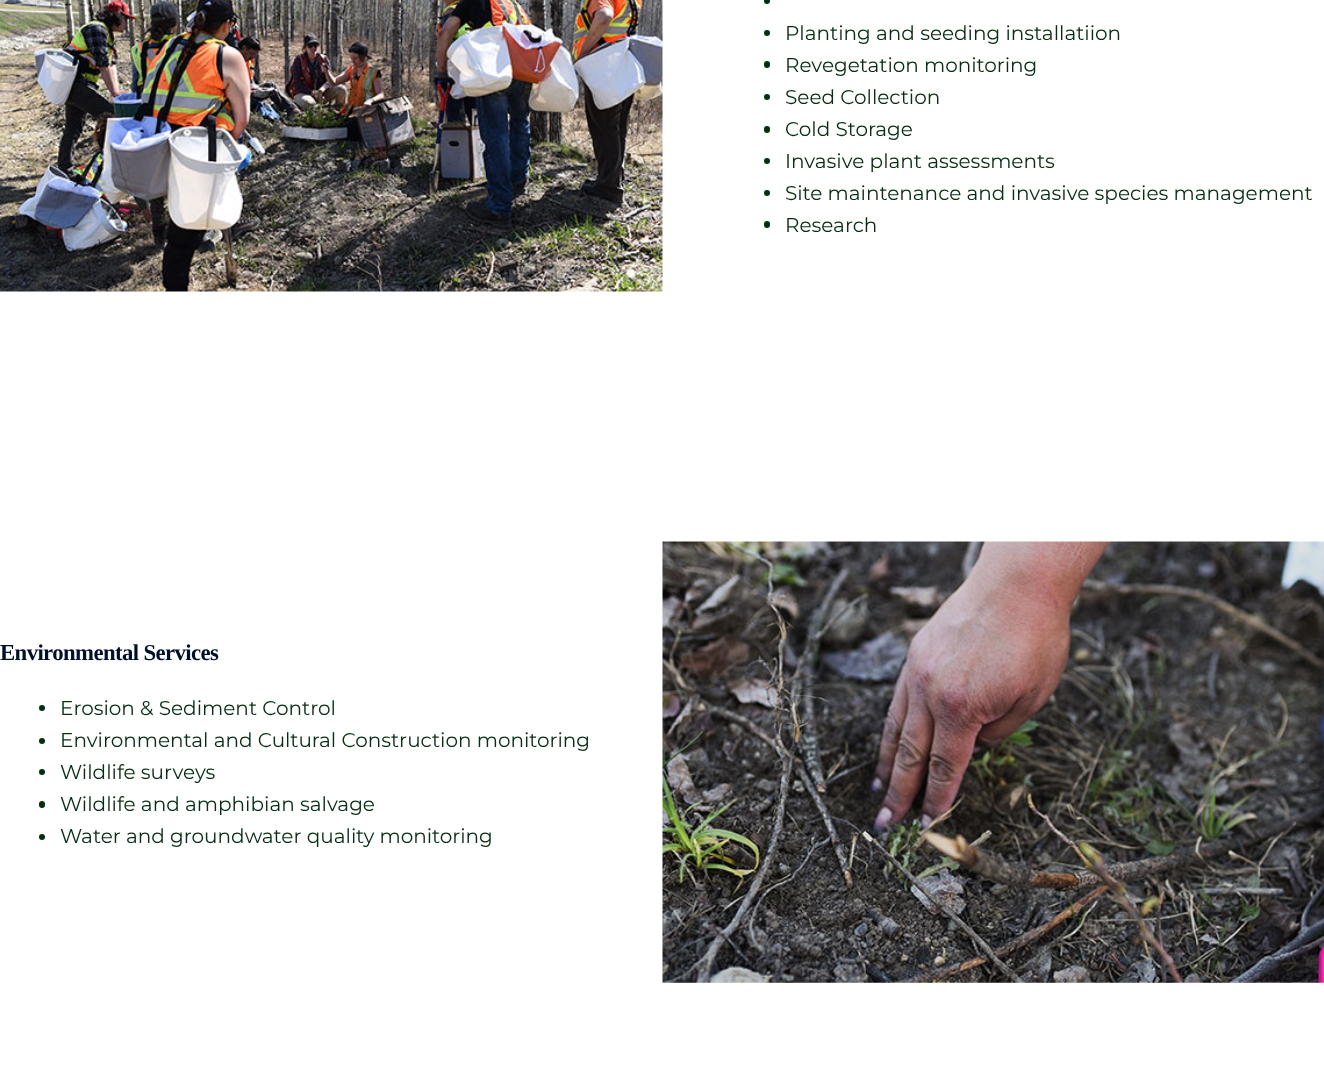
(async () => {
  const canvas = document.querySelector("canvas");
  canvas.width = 1324;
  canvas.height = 1092;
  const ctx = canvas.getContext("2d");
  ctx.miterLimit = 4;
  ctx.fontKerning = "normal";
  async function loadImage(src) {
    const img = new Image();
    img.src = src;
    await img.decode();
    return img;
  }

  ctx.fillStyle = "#ffffff";
  ctx.fillRect(0, 0, 1324, 1092);
  ctx.drawImage(await loadImage("img/1.png"), 0, 0, 663, 292);
  ctx.fillStyle = "#052f10";
  ctx.beginPath();
  ctx.arc(767, 1, 3, 0, Math.PI * 2);
  ctx.fill();
  ctx.beginPath();
  ctx.arc(767, 33, 3, 0, Math.PI * 2);
  ctx.fill();
  ctx.beginPath();
  ctx.roundRect(764, 61, 6, 7, 3);
  ctx.fill();
  ctx.beginPath();
  ctx.arc(767, 97, 3, 0, Math.PI * 2);
  ctx.fill();
  ctx.beginPath();
  ctx.roundRect(764, 126, 6, 7, 3);
  ctx.fill();
  ctx.beginPath();
  ctx.arc(767, 161, 3, 0, Math.PI * 2);
  ctx.fill();
  ctx.beginPath();
  ctx.arc(767, 193, 3, 0, Math.PI * 2);
  ctx.fill();
  ctx.beginPath();
  ctx.roundRect(764, 221, 6, 7, 3);
  ctx.fill();
  ctx.beginPath();
  ctx.arc(42, 708, 3, 0, Math.PI * 2);
  ctx.fill();
  ctx.beginPath();
  ctx.arc(42, 741, 3, 0, Math.PI * 2);
  ctx.fill();
  ctx.beginPath();
  ctx.arc(42, 772, 3, 0, Math.PI * 2);
  ctx.fill();
  ctx.beginPath();
  ctx.roundRect(39, 801, 6, 7, 3);
  ctx.fill();
  ctx.beginPath();
  ctx.arc(42, 837, 3, 0, Math.PI * 2);
  ctx.fill();
  ctx.drawImage(await loadImage("img/2.png"), 662, 541, 662, 442);
  ctx.font = "20px Montserrat";
  for (const [text, x, y] of [
    ["Planting and seeding installatiion", 785, 40],
    ["Revegetation monitoring", 785, 72],
    ["Seed Collection", 785, 104],
    ["Cold Storage", 785, 136],
    ["Invasive plant assessments", 785, 168],
    ["Site maintenance and invasive species management", 785, 200],
    ["Research", 785, 232],
  ]) {
    ctx.fillText(text, x, y);
  }
  ctx.letterSpacing = "-0.6px";
  ctx.font = "bold 22.75px Liberation Serif";
  ctx.fillStyle = "#000f2b";
  ctx.fillText("Environmental Services", 0, 660);
  ctx.letterSpacing = "0px";
  ctx.font = "20px Montserrat";
  ctx.fillStyle = "#052f10";
  for (const [text, x, y] of [
    ["Erosion & Sediment Control", 60, 715],
    ["Environmental and Cultural Construction monitoring", 60, 747],
    ["Wildlife surveys", 60, 779],
    ["Wildlife and amphibian salvage", 60, 811],
    ["Water and groundwater quality monitoring", 60, 843],
  ]) {
    ctx.fillText(text, x, y);
  }
})();
